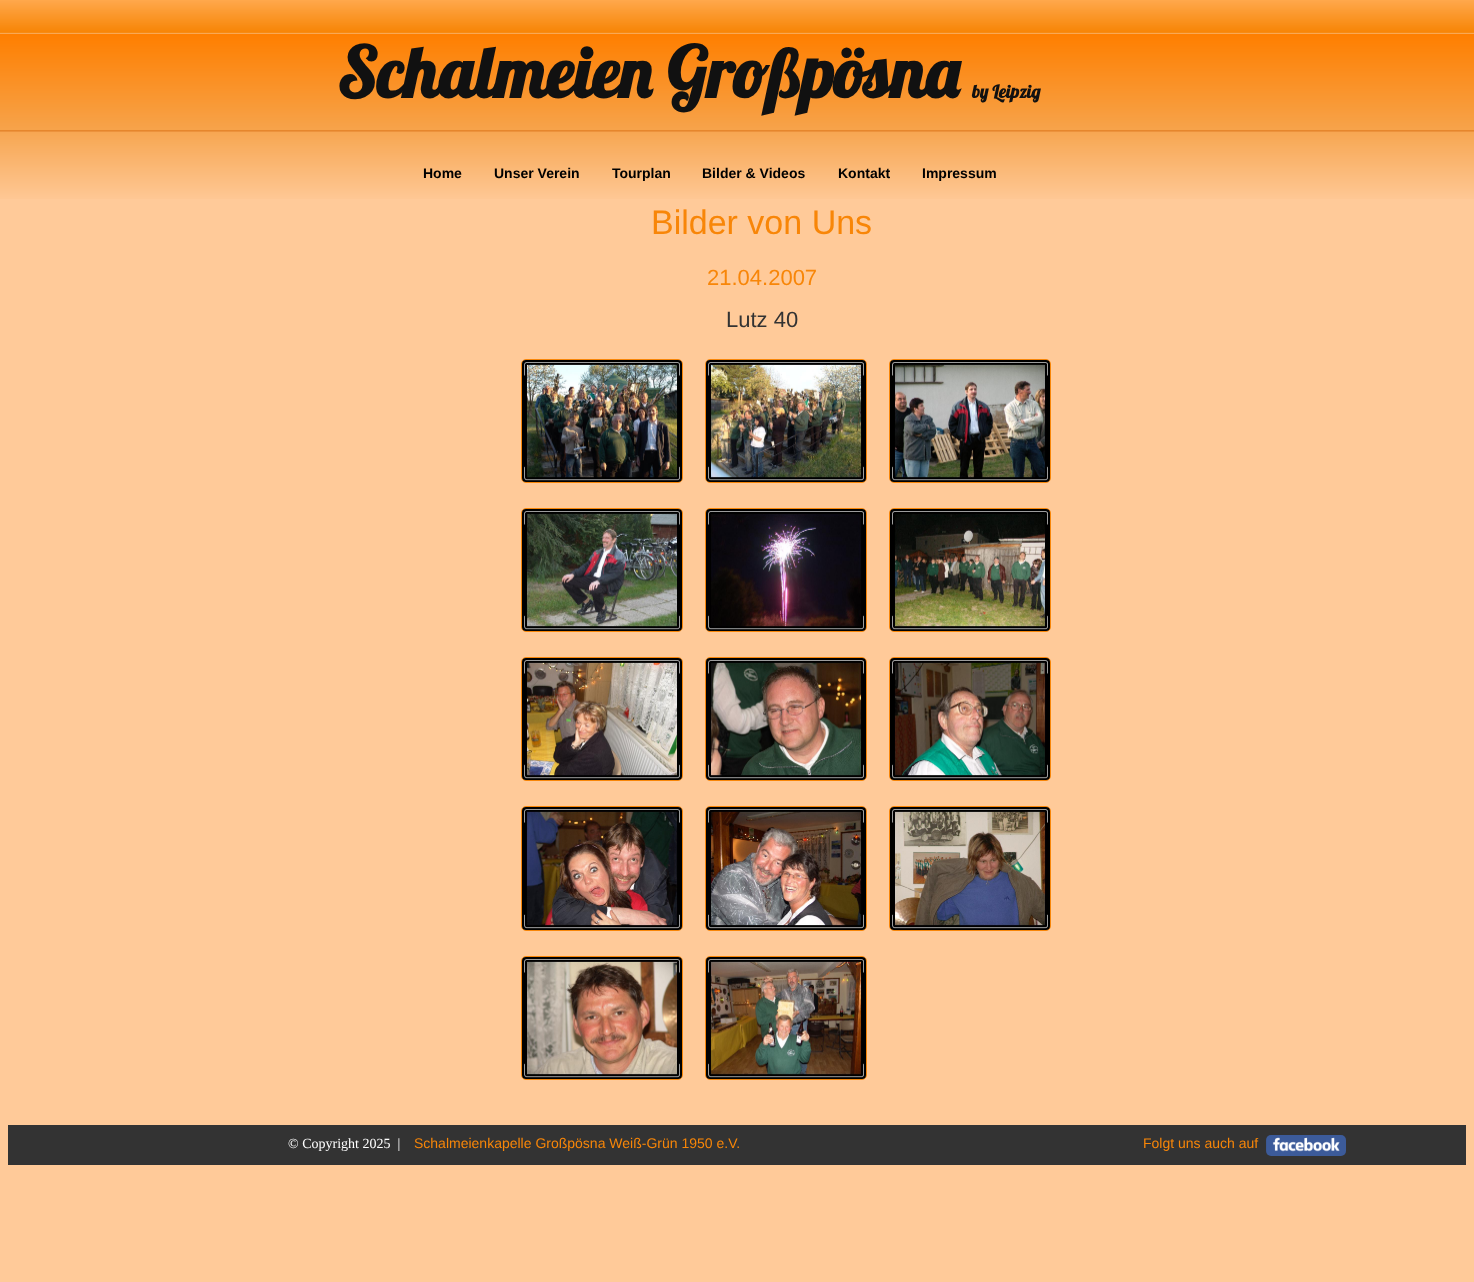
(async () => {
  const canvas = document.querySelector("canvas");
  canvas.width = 1474;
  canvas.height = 1282;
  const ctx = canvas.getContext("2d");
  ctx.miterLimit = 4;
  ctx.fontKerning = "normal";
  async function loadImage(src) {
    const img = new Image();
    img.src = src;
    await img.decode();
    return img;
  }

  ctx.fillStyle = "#ffca99";
  ctx.fillRect(0, 0, 1474, 1282);
  ctx.drawImage(await loadImage("img/1.png"), 0, 0, 1474, 199);
  ctx.beginPath();
  ctx.roundRect(521.5, 359.5, 161, 123, 4.5);
  ctx.strokeStyle = "#f88608";
  ctx.stroke();
  ctx.drawImage(await loadImage("img/2.png"), 522, 360, 160, 122);
  ctx.beginPath();
  ctx.roundRect(705.5, 359.5, 161, 123, 4.5);
  ctx.stroke();
  ctx.drawImage(await loadImage("img/3.png"), 706, 360, 160, 122);
  ctx.beginPath();
  ctx.roundRect(889.5, 359.5, 161, 123, 4.5);
  ctx.stroke();
  ctx.drawImage(await loadImage("img/4.png"), 890, 360, 160, 122);
  ctx.beginPath();
  ctx.roundRect(521.5, 508.5, 161, 123, 4.5);
  ctx.stroke();
  ctx.drawImage(await loadImage("img/5.png"), 522, 509, 160, 122);
  ctx.beginPath();
  ctx.roundRect(705.5, 508.5, 161, 123, 4.5);
  ctx.stroke();
  ctx.drawImage(await loadImage("img/6.png"), 706, 509, 160, 122);
  ctx.beginPath();
  ctx.roundRect(889.5, 508.5, 161, 123, 4.5);
  ctx.stroke();
  ctx.drawImage(await loadImage("img/7.png"), 890, 509, 160, 122);
  ctx.beginPath();
  ctx.roundRect(521.5, 657.5, 161, 123, 4.5);
  ctx.stroke();
  ctx.drawImage(await loadImage("img/8.png"), 522, 658, 160, 122);
  ctx.beginPath();
  ctx.roundRect(705.5, 657.5, 161, 123, 4.5);
  ctx.stroke();
  ctx.drawImage(await loadImage("img/9.png"), 706, 658, 160, 122);
  ctx.beginPath();
  ctx.roundRect(889.5, 657.5, 161, 123, 4.5);
  ctx.stroke();
  ctx.drawImage(await loadImage("img/10.png"), 890, 658, 160, 122);
  ctx.beginPath();
  ctx.roundRect(521.5, 806.5, 161, 124, 4.5);
  ctx.stroke();
  ctx.drawImage(await loadImage("img/11.png"), 522, 807, 160, 123);
  ctx.beginPath();
  ctx.roundRect(705.5, 806.5, 161, 124, 4.5);
  ctx.stroke();
  ctx.drawImage(await loadImage("img/12.png"), 706, 807, 160, 123);
  ctx.beginPath();
  ctx.roundRect(889.5, 806.5, 161, 124, 4.5);
  ctx.stroke();
  ctx.drawImage(await loadImage("img/13.png"), 890, 807, 160, 123);
  ctx.beginPath();
  ctx.roundRect(521.5, 956.5, 161, 123, 4.5);
  ctx.stroke();
  ctx.drawImage(await loadImage("img/14.png"), 522, 957, 160, 122);
  ctx.beginPath();
  ctx.roundRect(705.5, 956.5, 161, 123, 4.5);
  ctx.stroke();
  ctx.drawImage(await loadImage("img/15.png"), 706, 957, 160, 122);
  ctx.fillStyle = "#333333";
  ctx.fillRect(8, 1125, 1458, 40);
  ctx.drawImage(await loadImage("img/16.png"), 1266, 1135, 80, 21);
  ctx.font = "bold 70px Lobster";
  ctx.fillStyle = "#111111";
  ctx.fillText("Schalmeien Großpösna", 337, 98);
  ctx.font = "bold 18px Lobster";
  ctx.fillText("by Leipzig", 972, 98);
  ctx.font = "bold 14px Liberation Sans";
  ctx.fillStyle = "#000000";
  for (const [text, x, y] of [
    ["Home", 423, 178],
    ["Unser Verein", 494, 178],
    ["Tourplan", 612, 178],
    ["Bilder & Videos", 702, 178],
    ["Kontakt", 838, 178],
    ["Impressum", 922, 178],
  ]) {
    ctx.fillText(text, x, y);
  }
  ctx.font = "34px Liberation Sans";
  ctx.fillStyle = "#f88608";
  ctx.fillText("Bilder von Uns", 651, 234);
  ctx.font = "22px Liberation Sans";
  ctx.fillText("21.04.2007", 707, 285);
  ctx.fillStyle = "#333333";
  ctx.fillText("Lutz 40", 726, 327);
  ctx.font = "14px Liberation Serif";
  ctx.fillStyle = "#ffffff";
  ctx.fillText("© Copyright 2025  |", 288, 1148);
  ctx.font = "14px Liberation Sans";
  ctx.fillStyle = "#f88608";
  ctx.fillText("Schalmeienkapelle Großpösna Weiß-Grün 1950 e.V.", 414, 1148);
  ctx.fillText("Folgt uns auch auf", 1143, 1148);
})();
